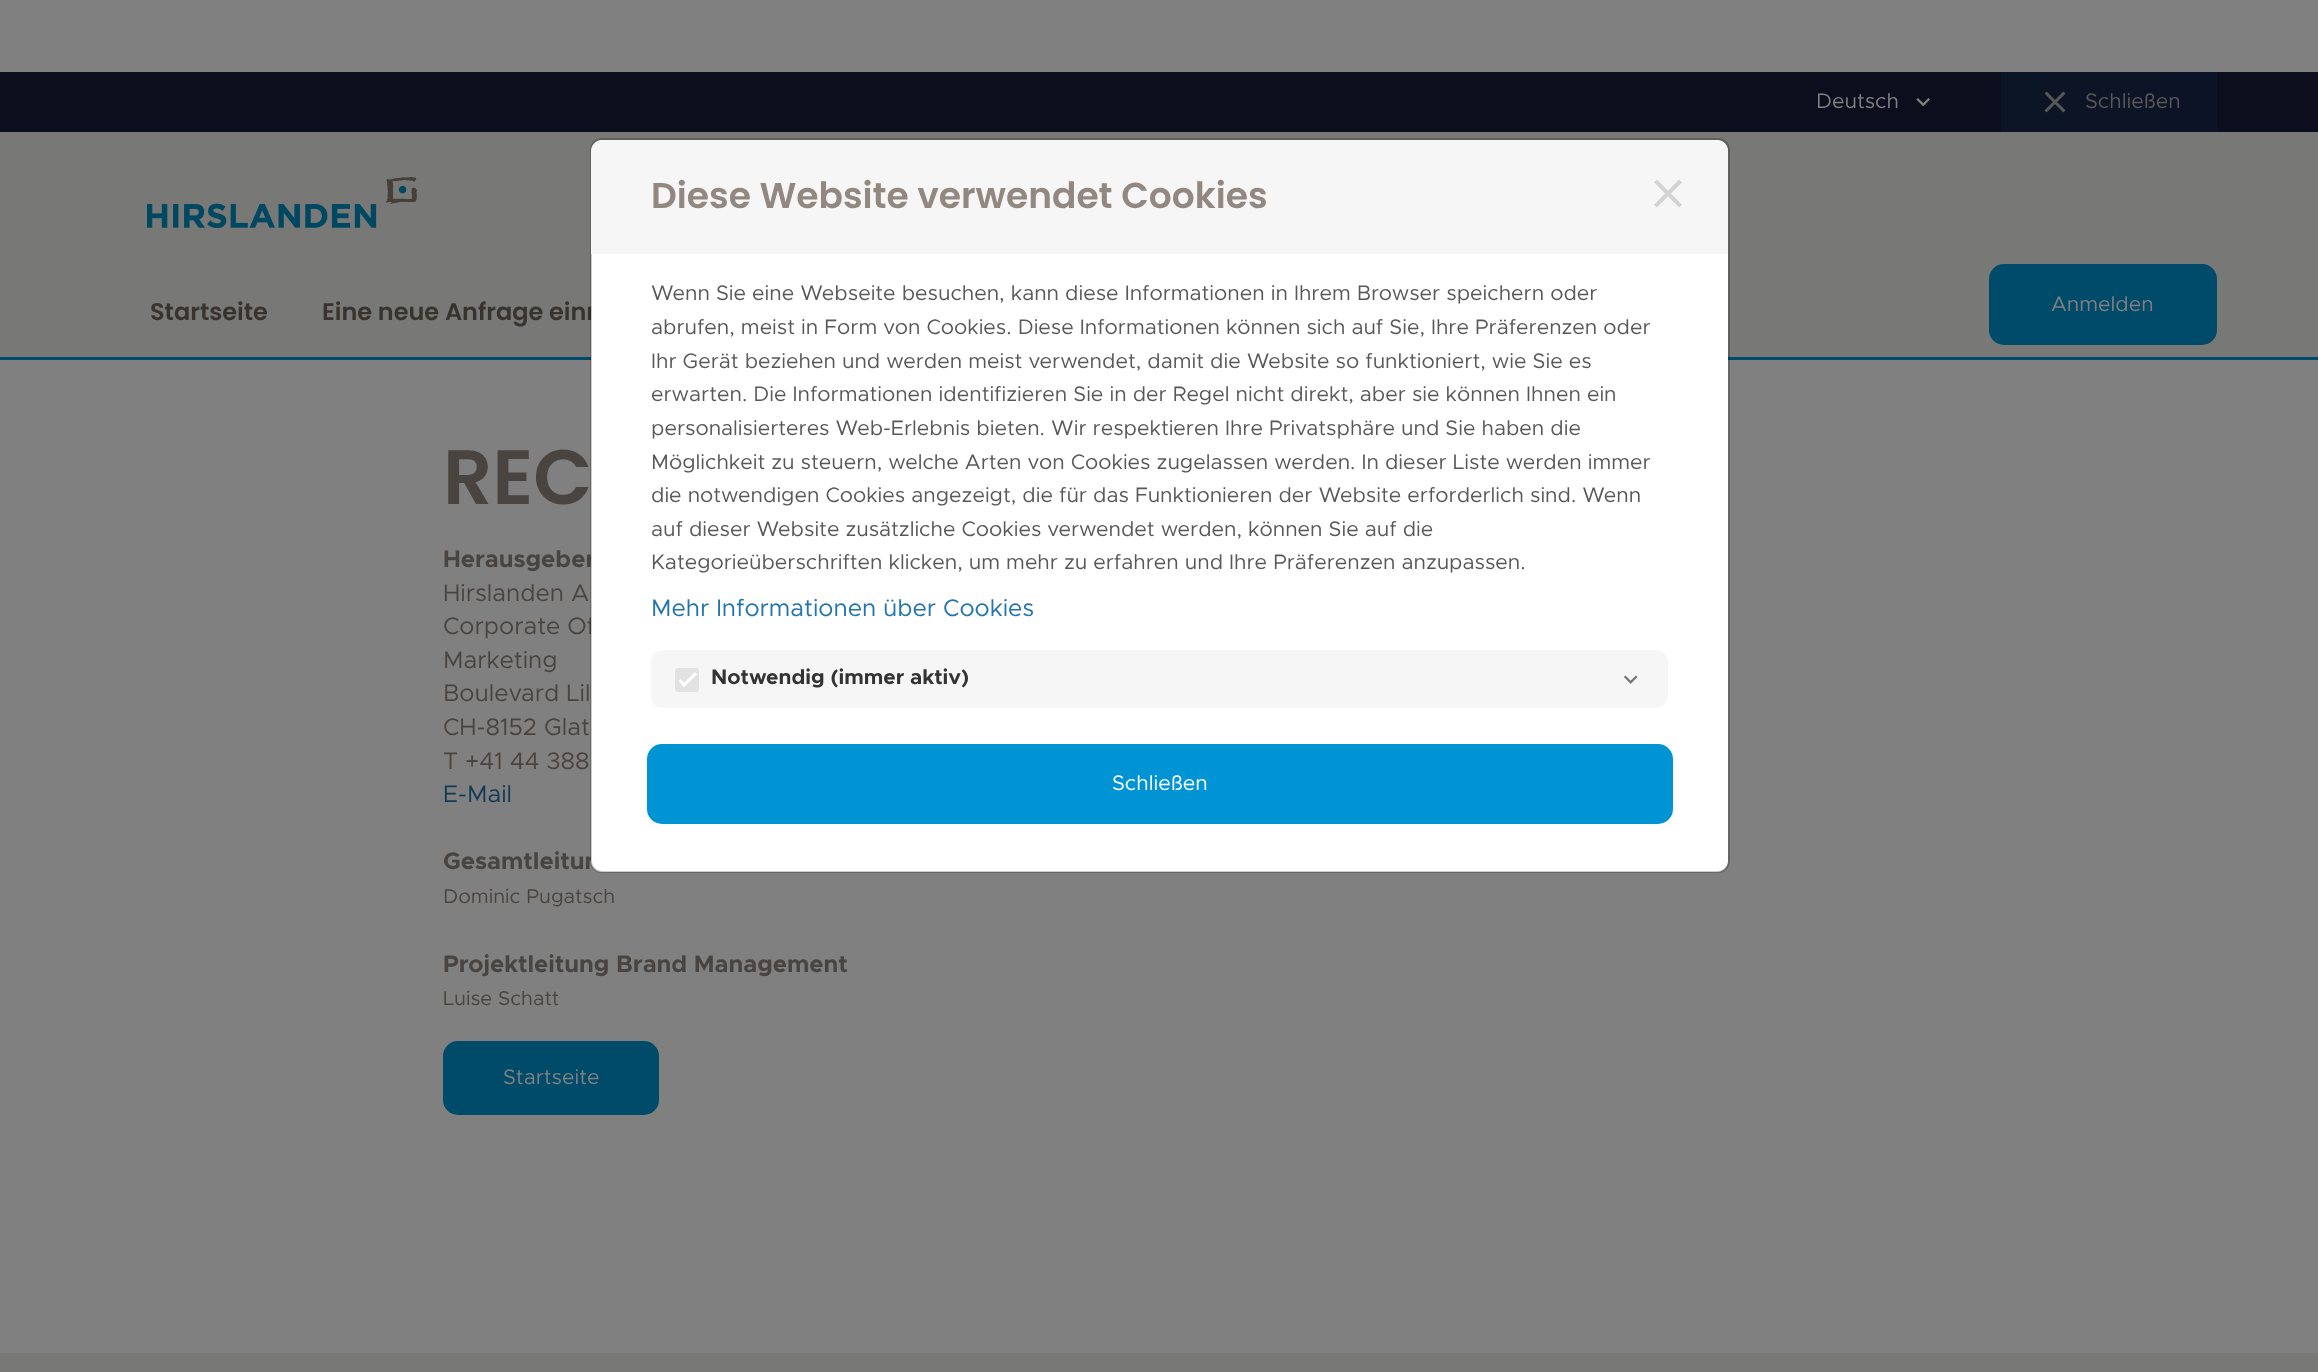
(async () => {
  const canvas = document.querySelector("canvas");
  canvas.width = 2318;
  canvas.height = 1372;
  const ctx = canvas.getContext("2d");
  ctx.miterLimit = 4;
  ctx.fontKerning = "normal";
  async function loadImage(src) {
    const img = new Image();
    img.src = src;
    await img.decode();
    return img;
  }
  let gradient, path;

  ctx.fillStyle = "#808080";
  ctx.fillRect(0, 0, 2318, 1372);
  for (const [x, y, w, h, color] of [
    [0, 132, 2318, 225, "#787877"],
    [0, 357, 2318, 3, "#004a6a"],
    [0, 72, 2318, 60, "#0a0e1d"],
  ]) {
    ctx.fillStyle = color;
    ctx.fillRect(x, y, w, h);
  }
  ctx.drawImage(await loadImage("img/1.png"), 1916, 98, 14, 9);
  gradient = ctx.createLinearGradient(2001, 102, 2217, 102);
  gradient.addColorStop(0, "#0c1526");
  gradient.addColorStop(1, "#0c1326");
  ctx.fillStyle = gradient;
  ctx.fillRect(2001, 72, 216, 60);
  ctx.drawImage(await loadImage("img/2.png"), 2044, 91, 22, 22);
  ctx.drawImage(await loadImage("img/3.png"), 147, 177, 270, 51);
  ctx.fillStyle = "#004a6a";
  ctx.beginPath();
  ctx.roundRect(1989, 264, 228, 81, 15);
  ctx.fill();
  ctx.beginPath();
  ctx.roundRect(443, 1041, 216, 74, 15);
  ctx.fill();
  ctx.fillStyle = "#787877";
  ctx.fillRect(0, 1353, 2318, 19);
  ctx.font = "21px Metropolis";
  ctx.fillStyle = "#808080";
  ctx.fillText("Deutsch", 1816, 108);
  ctx.fillStyle = "#585858";
  ctx.fillText("Schließen", 2085, 108);
  ctx.font = "600 24px Poppins";
  ctx.fillStyle = "#39332e";
  ctx.fillText("Startseite", 150, 320);
  ctx.fillText("Eine neue Anfrage einr", 322, 320);
  ctx.font = "21px Metropolis";
  ctx.fillStyle = "#808080";
  ctx.fillText("Anmelden", 2051, 311);
  ctx.font = "600 77px Poppins";
  ctx.fillStyle = "#4a4440";
  ctx.fillText("REC", 443, 504);
  ctx.font = "bold 24px Metropolis";
  ctx.fillText("Herausgeber", 443, 567);
  ctx.font = "24px Metropolis";
  for (const [text, x, y] of [
    ["Hirslanden A", 443, 601],
    ["Corporate Of", 443, 634],
    ["Marketing", 443, 668],
    ["Boulevard Lil", 443, 701],
    ["CH-8152 Glat", 443, 735],
    ["T +41 44 388", 443, 769],
  ]) {
    ctx.fillText(text, x, y);
  }
  ctx.fillStyle = "#113a56";
  ctx.fillText("E-Mail", 443, 802);
  ctx.font = "bold 24px Metropolis";
  ctx.fillStyle = "#4a4440";
  ctx.fillText("Gesamtleitun", 443, 869);
  ctx.font = "20px Metropolis";
  ctx.fillText("Dominic Pugatsch", 443, 903);
  ctx.font = "bold 24px Metropolis";
  ctx.fillText("Projektleitung Brand Management", 443, 972);
  ctx.font = "20px Metropolis";
  ctx.fillText("Luise Schatt", 443, 1005);
  ctx.font = "21px Metropolis";
  ctx.fillStyle = "#808080";
  ctx.fillText("Startseite", 503, 1084);
  ctx.fillStyle = "#ffffff";
  ctx.beginPath();
  ctx.roundRect(591, 140, 1137, 732, 11);
  ctx.fill();
  ctx.beginPath();
  ctx.roundRect(591, 139, 1138, 733, 11);
  ctx.strokeStyle = "rgba(0, 0, 0, 0.2)";
  ctx.lineWidth = 2;
  ctx.stroke();
  ctx.fillStyle = "#f6f6f6";
  ctx.beginPath();
  ctx.roundRect(591, 140, 1137, 114, [12, 12, 0, 0]);
  ctx.fill();
  ctx.font = "600 36px Poppins";
  ctx.fillStyle = "#938880";
  ctx.fillText("Diese Website verwendet Cookies", 651, 208);
  ctx.drawImage(await loadImage("img/4.png"), 1654, 179, 28, 29);
  ctx.font = "21px Metropolis";
  ctx.fillStyle = "#585858";
  for (const [text, x, y] of [
    ["Wenn Sie eine Webseite besuchen, kann diese Informationen in Ihrem Browser speichern oder", 651, 300],
    ["abrufen, meist in Form von Cookies. Diese Informationen können sich auf Sie, Ihre Präferenzen oder", 651, 334],
    ["Ihr Gerät beziehen und werden meist verwendet, damit die Website so funktioniert, wie Sie es", 651, 368],
    ["erwarten. Die Informationen identifizieren Sie in der Regel nicht direkt, aber sie können Ihnen ein", 651, 401],
    ["personalisierteres Web-Erlebnis bieten. Wir respektieren Ihre Privatsphäre und Sie haben die", 651, 435],
    ["Möglichkeit zu steuern, welche Arten von Cookies zugelassen werden. In dieser Liste werden immer", 651, 469],
    ["die notwendigen Cookies angezeigt, die für das Funktionieren der Website erforderlich sind. Wenn", 651, 502],
    ["auf dieser Website zusätzliche Cookies verwendet werden, können Sie auf die", 651, 536],
    ["Kategorieüberschriften klicken, um mehr zu erfahren und Ihre Präferenzen anzupassen.", 651, 569],
  ]) {
    ctx.fillText(text, x, y);
  }
  ctx.font = "24px Metropolis";
  ctx.fillStyle = "#2274ac";
  ctx.fillText("Mehr Informationen über Cookies", 651, 616);
  ctx.fillStyle = "#f6f6f6";
  ctx.beginPath();
  ctx.roundRect(651, 650, 1017, 58, 12);
  ctx.fill();
  ctx.fillStyle = "#e2e2e2";
  ctx.beginPath();
  ctx.roundRect(676.5, 669.5, 21, 21, 1.5);
  ctx.fill();
  ctx.strokeStyle = "#e2e2e2";
  ctx.lineWidth = 3;
  ctx.stroke();
  ctx.font = "bold 21px Metropolis";
  ctx.fillStyle = "#333333";
  ctx.fillText("Notwendig (immer aktiv)", 711, 684);
  ctx.fillStyle = "#ffffff";
  path = new Path2D("M682 685L695 672L697 674.5L684 687Z");
  ctx.fill(path);
  path = new Path2D("M678.5 681L680.5 679L686.5 685L684 687Z");
  ctx.fill(path);
  ctx.drawImage(await loadImage("img/5.png"), 1624, 675, 14, 9);
  ctx.fillStyle = "#0094d4";
  ctx.beginPath();
  ctx.roundRect(647, 744, 1026, 80, 15);
  ctx.fill();
  ctx.font = "21px Metropolis";
  ctx.fillStyle = "#ffffff";
  ctx.fillText("Schließen", 1112, 790);
})();
